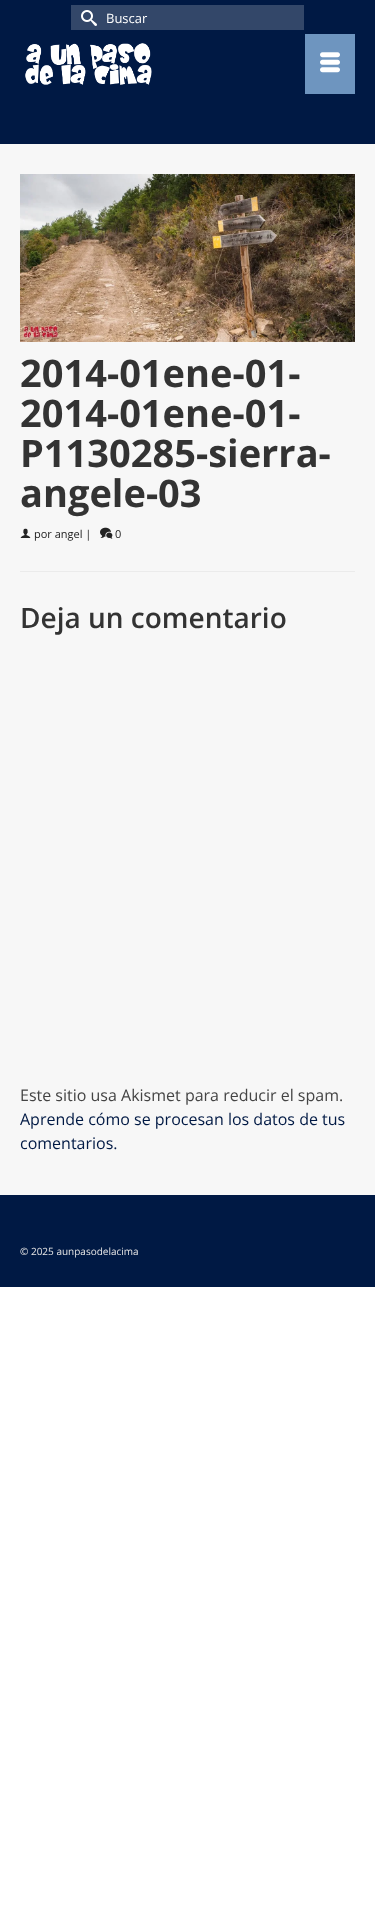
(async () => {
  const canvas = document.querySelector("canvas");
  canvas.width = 375;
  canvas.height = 1916;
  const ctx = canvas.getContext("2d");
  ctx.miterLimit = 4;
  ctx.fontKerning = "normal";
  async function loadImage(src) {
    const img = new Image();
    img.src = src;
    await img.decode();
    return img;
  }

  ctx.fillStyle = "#ffffff";
  ctx.fillRect(0, 0, 375, 1916);
  ctx.fillStyle = "#001944";
  ctx.fillRect(0, 0, 375, 144);
  ctx.fillStyle = "#334769";
  ctx.fillRect(71, 5, 233, 25);
  ctx.drawImage(await loadImage("img/1.png"), 81, 10, 16, 16);
  ctx.drawImage(await loadImage("img/2.png"), 25, 43, 127, 42);
  ctx.fillStyle = "#6e95bf";
  ctx.fillRect(305, 34, 50, 60);
  ctx.drawImage(await loadImage("img/3.png"), 320, 52, 20, 21);
  ctx.fillStyle = "#f7f7f7";
  ctx.fillRect(0, 144, 375, 1051);
  ctx.drawImage(await loadImage("img/4.png"), 20, 174, 335, 168);
  ctx.drawImage(await loadImage("img/5.png"), 20, 528, 11, 10);
  ctx.drawImage(await loadImage("img/6.png"), 100, 527, 13, 12);
  ctx.fillStyle = "#ebebeb";
  ctx.fillRect(20, 571, 335, 1);
  ctx.fillStyle = "#001944";
  ctx.fillRect(0, 1195, 375, 92);
  ctx.font = "13px Open Sans";
  ctx.fillStyle = "#ffffff";
  ctx.fillText("Buscar", 106, 23);
  ctx.font = "bold 38px Open Sans";
  ctx.fillStyle = "#333333";
  for (const [text, x, y] of [
    ["2014-01ene-01-", 20, 387],
    ["2014-01ene-01-", 20, 427],
    ["P1130285-sierra-", 20, 467],
    ["angele-03", 20, 507],
  ]) {
    ctx.fillText(text, x, y);
  }
  ctx.font = "11px Open Sans";
  ctx.fillStyle = "#232323";
  ctx.fillText("por angel |", 34, 538);
  ctx.fillText("0", 115, 538);
  ctx.font = "600 28px Open Sans";
  ctx.fillStyle = "#333333";
  ctx.fillText("Deja un comentario", 20, 628);
  ctx.font = "16px Open Sans";
  ctx.fillStyle = "#444444";
  ctx.fillText("Este sitio usa Akismet para reducir el spam.", 20, 1101);
  ctx.fillStyle = "#001944";
  ctx.fillText("Aprende cómo se procesan los datos de tus", 20, 1125);
  ctx.fillText("comentarios.", 20, 1149);
  ctx.font = "10px Open Sans";
  ctx.fillStyle = "#e5e5e5";
  ctx.fillText("© 2025 aunpasodelacima", 20, 1255);
})();
